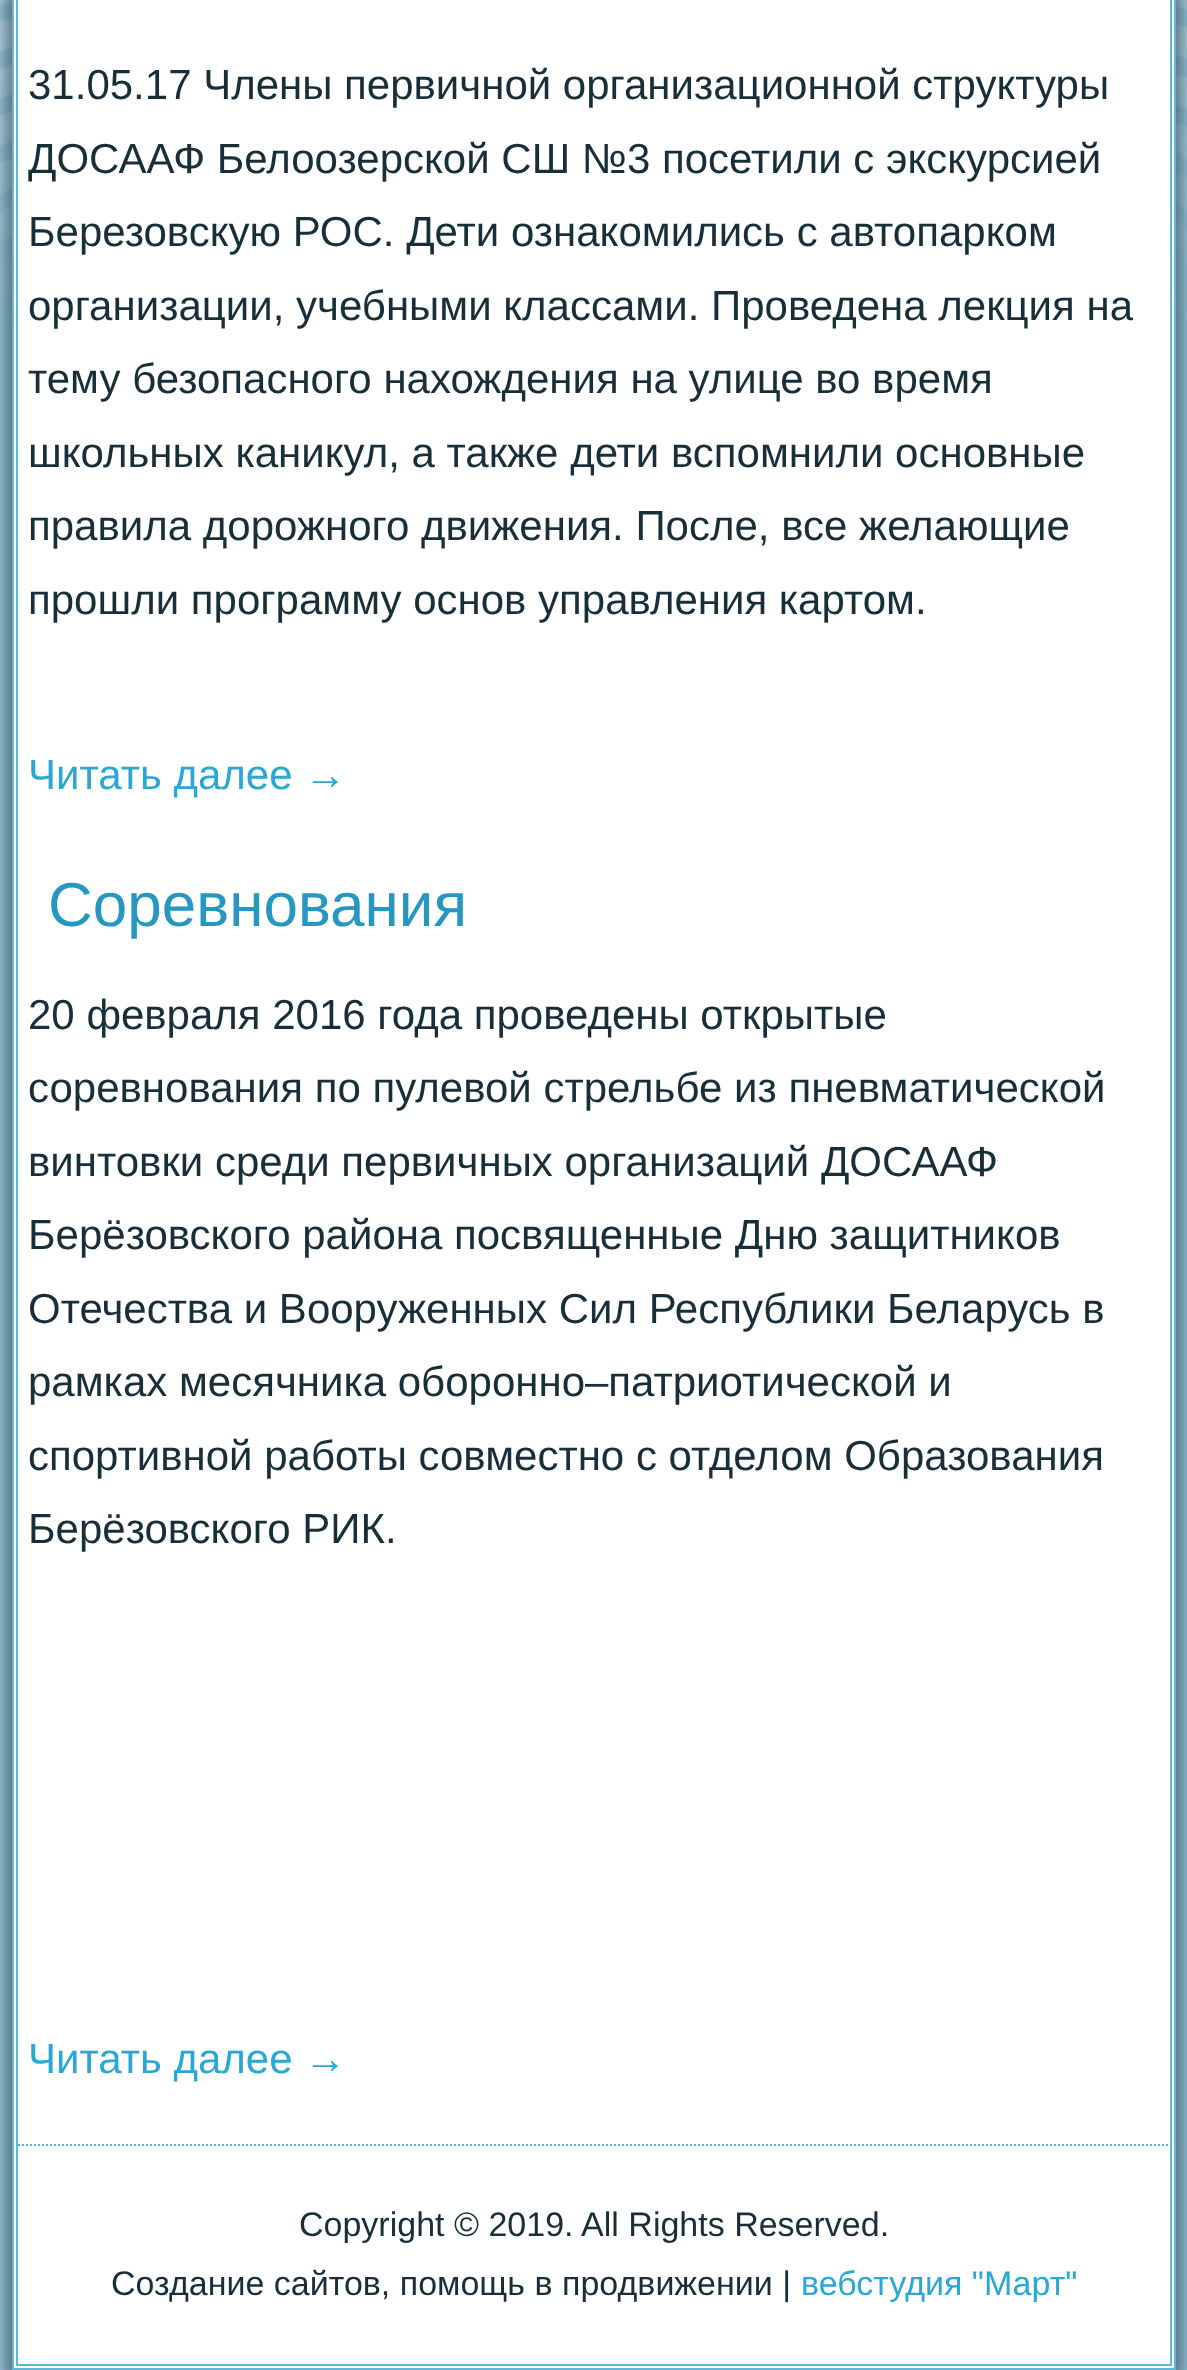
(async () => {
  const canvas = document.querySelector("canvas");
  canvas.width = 1187;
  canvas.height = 2370;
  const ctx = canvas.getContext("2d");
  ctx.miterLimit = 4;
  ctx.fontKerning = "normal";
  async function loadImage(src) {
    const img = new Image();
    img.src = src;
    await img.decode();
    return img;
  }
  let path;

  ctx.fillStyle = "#96c8de";
  ctx.fillRect(0, 0, 1187, 2370);
  ctx.drawImage(await loadImage("img/1.png"), 0, 0, 1187, 327);
  ctx.fillStyle = "rgba(0, 0, 0, 0.4)";
  ctx.filter = "blur(7px)";
  ctx.beginPath();
  ctx.rect(4, -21, 1180, 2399);
  ctx.fill();
  ctx.filter = "none";
  ctx.fillStyle = "#ffffff";
  ctx.beginPath();
  ctx.rect(13, -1, 1162, 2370);
  ctx.fill();
  ctx.strokeStyle = "#5eb9d9";
  ctx.lineWidth = 2;
  ctx.stroke();
  ctx.strokeRect(17, -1, 1154, 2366);
  path = new Path2D("M18 2145H1170");
  ctx.strokeStyle = "#50b7dc";
  ctx.setLineDash([2, 2]);
  ctx.stroke(path);
  ctx.font = "42px Liberation Sans";
  ctx.fillStyle = "#182f3a";
  for (const [text, x, y] of [
    ["31.05.17 Члены первичной организационной структуры", 28, 99],
    ["ДОСААФ Белоозерской СШ №3 посетили с экскурсией", 28, 173],
    ["Березовскую РОС. Дети ознакомились с автопарком", 28, 246],
    ["организации, учебными классами. Проведена лекция на", 28, 320],
    ["тему безопасного нахождения на улице во время", 28, 393],
    ["школьных каникул, а также дети вспомнили основные", 28, 467],
    ["правила дорожного движения. После, все желающие", 28, 540],
    ["прошли программу основ управления картом.", 28, 614],
  ]) {
    ctx.fillText(text, x, y);
  }
  ctx.fillStyle = "#2aa7d5";
  ctx.fillText("Читать далее →", 28, 789);
  ctx.font = "62px Liberation Sans";
  ctx.fillStyle = "#2697c0";
  ctx.fillText("Соревнования", 48, 926);
  ctx.font = "42px Liberation Sans";
  ctx.fillStyle = "#182f3a";
  for (const [text, x, y] of [
    ["20 февраля 2016 года проведены открытые", 28, 1029],
    ["соревнования по пулевой стрельбе из пневматической", 28, 1102],
    ["винтовки среди первичных организаций ДОСААФ", 28, 1176],
    ["Берёзовского района посвященные Дню защитников", 28, 1249],
    ["Отечества и Вооруженных Сил Республики Беларусь в", 28, 1323],
    ["рамках месячника оборонно–патриотической и", 28, 1396],
    ["спортивной работы совместно с отделом Образования", 28, 1470],
    ["Берёзовского РИК.", 28, 1543],
  ]) {
    ctx.fillText(text, x, y);
  }
  ctx.fillStyle = "#2aa7d5";
  ctx.fillText("Читать далее →", 28, 2073);
  ctx.font = "34px Liberation Sans";
  ctx.fillStyle = "#182f3a";
  ctx.fillText("Copyright © 2019. All Rights Reserved.", 299, 2236);
  ctx.fillText("Создание сайтов, помощь в продвижении |", 111, 2295);
  ctx.fillStyle = "#2aa7d5";
  ctx.fillText("вебстудия \"Март\"", 801, 2295);
})();
